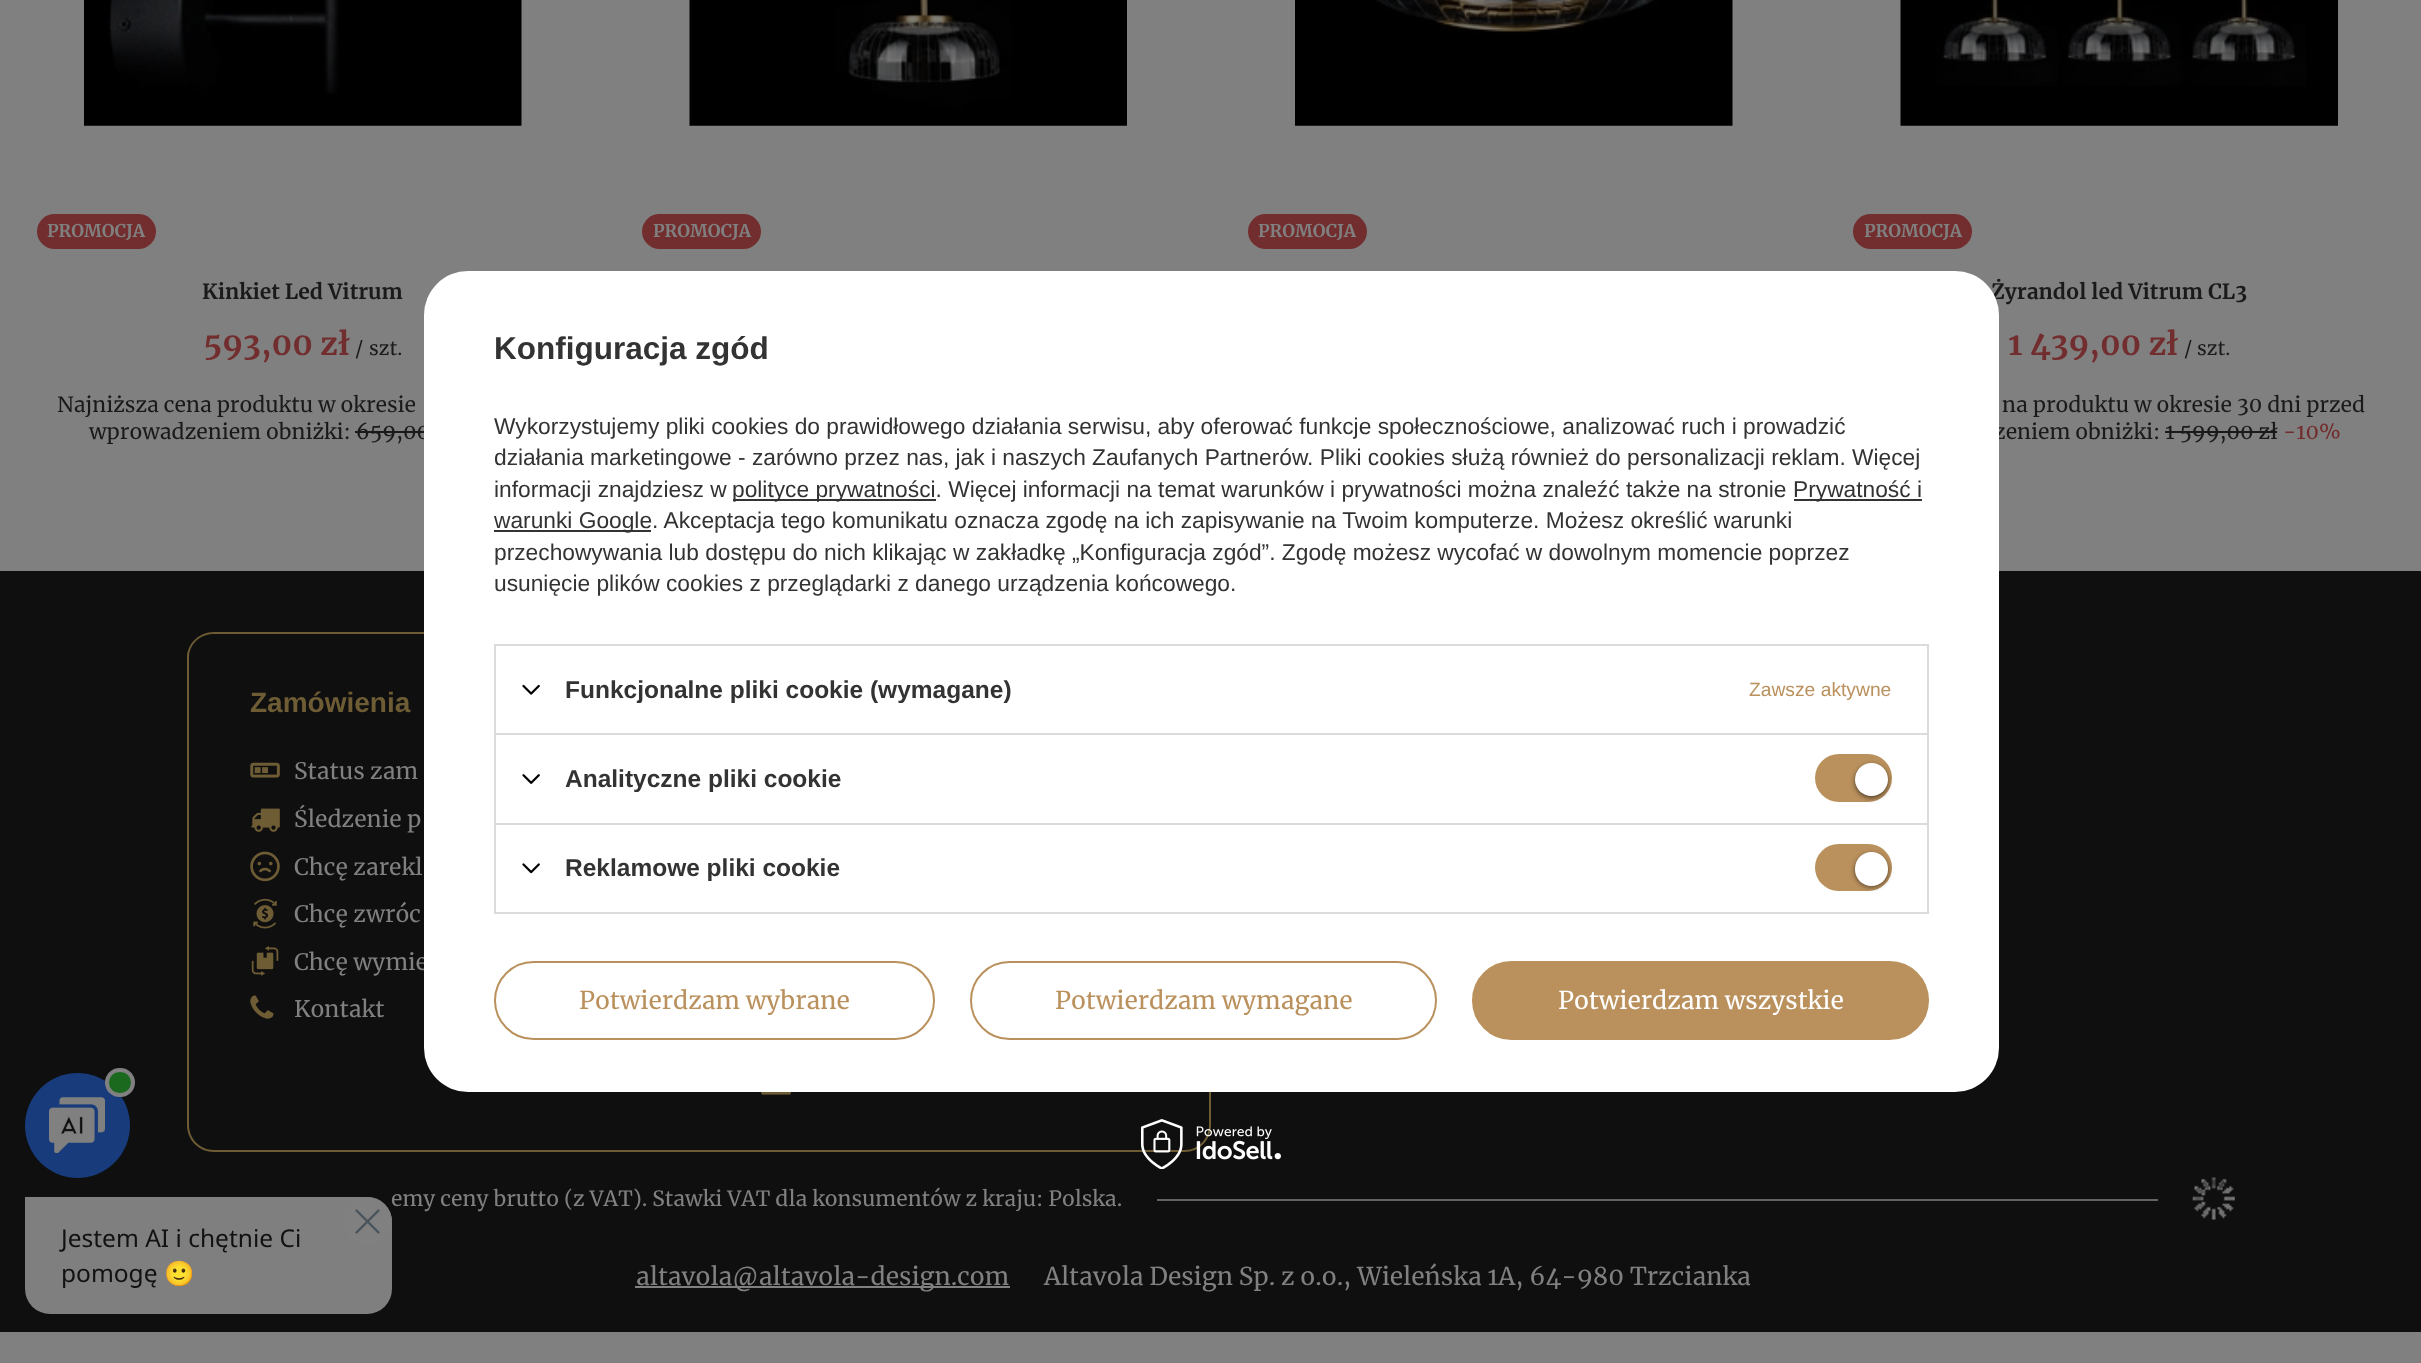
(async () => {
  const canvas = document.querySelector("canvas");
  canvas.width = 2421;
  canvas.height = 1363;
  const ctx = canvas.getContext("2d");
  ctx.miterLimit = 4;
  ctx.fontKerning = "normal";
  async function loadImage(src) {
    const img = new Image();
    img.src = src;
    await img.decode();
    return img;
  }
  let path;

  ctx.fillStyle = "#808080";
  ctx.fillRect(0, 0, 2421, 1363);
  ctx.drawImage(await loadImage("img/1.png"), 84, 0, 438, 126);
  ctx.fillStyle = "#722e2e";
  ctx.beginPath();
  ctx.roundRect(37, 214, 119, 35, 17.5);
  ctx.fill();
  ctx.fillStyle = "#1a1a1a";
  ctx.fillRect(355, 431, 69, 2);
  ctx.drawImage(await loadImage("img/2.png"), 689, 0, 438, 126);
  ctx.fillStyle = "#722e2e";
  ctx.beginPath();
  ctx.roundRect(642, 214, 119, 35, 17.5);
  ctx.fill();
  ctx.drawImage(await loadImage("img/3.png"), 1295, 0, 438, 126);
  ctx.beginPath();
  ctx.roundRect(1248, 214, 119, 35, 17.5);
  ctx.fill();
  ctx.drawImage(await loadImage("img/4.png"), 1900, 0, 438, 126);
  ctx.beginPath();
  ctx.roundRect(1853, 214, 119, 35, 17.5);
  ctx.fill();
  ctx.fillStyle = "#1a1a1a";
  ctx.fillRect(2165, 431, 112, 2);
  ctx.fillStyle = "#0f0f0f";
  ctx.fillRect(0, 571, 2421, 761);
  ctx.fillStyle = "#6e5c35";
  path = new Path2D("M700 632H1185C1199 632 1211 644 1211 658V1125C1211 1140 1199 1152 1185 1152H700ZM700 634H1185C1198 634 1209 644 1209 658V1125C1209 1139 1198 1150 1185 1150H700Z");
  ctx.fill(path, "evenodd");
  ctx.drawImage(await loadImage("img/8.png"), 1141, 1119, 140, 50);
  ctx.fillStyle = "#183b7c";
  ctx.beginPath();
  ctx.arc(77.5, 1125.5, 52.5, 0, Math.PI * 2);
  ctx.fill();
  ctx.fillStyle = "#1b681f";
  ctx.beginPath();
  ctx.roundRect(107, 1070, 26, 25, 12.5);
  ctx.fill();
  ctx.strokeStyle = "#808080";
  ctx.lineWidth = 4;
  ctx.stroke();
  ctx.drawImage(await loadImage("img/9.png"), 49, 1097, 56, 56);
  ctx.fillStyle = "#7f7f7f";
  ctx.beginPath();
  ctx.roundRect(25, 1197, 367, 117, [0, 25, 25, 25]);
  ctx.fill();
  ctx.fillStyle = "#808080";
  ctx.beginPath();
  ctx.arc(367.5, 1221.5, 24.5, 0, Math.PI * 2);
  ctx.fill();
  path = new Path2D("M378.5 1210.5L356.5 1232.5M356.5 1210.5L378.5 1232.5");
  ctx.strokeStyle = "#49535a";
  ctx.lineWidth = 2.4;
  ctx.lineCap = "round";
  ctx.lineJoin = "round";
  ctx.stroke(path);
  ctx.fillStyle = "#6e5c35";
  path = new Path2D("M214 632H700V1152H214C199 1152 187 1140 187 1125V658C187 644 199 632 214 632ZM214 634H700V1150H214C200 1150 189 1139 189 1125V658C189 644 200 634 214 634Z");
  ctx.fill(path, "evenodd");
  ctx.drawImage(await loadImage("img/10.png"), 250, 762, 30, 16);
  ctx.drawImage(await loadImage("img/11.png"), 251, 808, 29, 24);
  ctx.drawImage(await loadImage("img/12.png"), 250, 851, 30, 31);
  ctx.drawImage(await loadImage("img/13.png"), 253, 898, 24, 31);
  ctx.drawImage(await loadImage("img/14.png"), 251, 946, 28, 30);
  ctx.drawImage(await loadImage("img/15.png"), 250, 995, 24, 24);
  ctx.drawImage(await loadImage("img/16.png"), 761, 1092, 30, 3);
  ctx.fillStyle = "#626464";
  ctx.fillRect(1157, 1199, 1001, 2);
  ctx.drawImage(await loadImage("img/17.png"), 2192, 1177, 43, 43);
  ctx.fillStyle = "#808080";
  ctx.fillRect(635, 1286, 375, 2);
  ctx.font = "bold 17.5px Merriweather";
  ctx.fillText("PROMOCJA", 47, 237);
  ctx.font = "bold 21px Merriweather";
  ctx.fillStyle = "#1a1a1a";
  ctx.fillText("Kinkiet Led Vitrum", 202, 299);
  ctx.font = "bold 31.5px Merriweather";
  ctx.fillStyle = "#722e2e";
  ctx.fillText("593,00 zł", 203, 355);
  ctx.font = "19.25px Merriweather";
  ctx.fillStyle = "#1a1a1a";
  ctx.fillText("/", 355, 355);
  ctx.fillText("szt.", 369, 355);
  ctx.font = "21px Merriweather";
  ctx.fillText("Najniższa cena produktu w okresie", 57, 412);
  ctx.fillText("wprowadzeniem obniżki: 659,00", 89, 439);
  ctx.font = "bold 17.5px Merriweather";
  ctx.fillStyle = "#808080";
  for (const [text, x, y] of [
    ["PROMOCJA", 653, 237],
    ["PROMOCJA", 1258, 237],
    ["PROMOCJA", 1864, 237],
  ]) {
    ctx.fillText(text, x, y);
  }
  ctx.font = "bold 21px Merriweather";
  ctx.fillStyle = "#1a1a1a";
  ctx.fillText("Żyrandol led Vitrum CL3", 1991, 299);
  ctx.font = "bold 31.5px Merriweather";
  ctx.fillStyle = "#722e2e";
  ctx.fillText("1 439,00 zł", 2008, 355);
  ctx.font = "19.25px Merriweather";
  ctx.fillStyle = "#1a1a1a";
  ctx.fillText("/", 2184, 355);
  ctx.fillText("szt.", 2197, 355);
  ctx.font = "21px Merriweather";
  ctx.fillText("na produktu w okresie 30 dni przed", 2002, 412);
  ctx.fillText("zeniem obniżki: 1 599,00 zł", 1994, 439);
  ctx.fillStyle = "#722e2e";
  ctx.fillText("-10%", 2283, 439);
  ctx.font = "24.5px Noto Sans";
  ctx.fillStyle = "#111111";
  ctx.fillText("Jestem AI i chętnie Ci", 61, 1247);
  ctx.fillText("pomogę", 61, 1282);
  ctx.font = "24.5px Noto Color Emoji";
  ctx.fillText("🙂", 164, 1282);
  ctx.font = "bold 28px Liberation Sans";
  ctx.fillStyle = "#6e5c35";
  ctx.fillText("Zamówienia", 250, 712);
  ctx.font = "22.75px Merriweather";
  ctx.fillStyle = "#808080";
  for (const [text, x, y] of [
    ["Status zam", 294, 779],
    ["Śledzenie p", 294, 827],
    ["Chcę zarekl", 294, 875],
    ["Chcę zwróc", 294, 922],
    ["Chcę wymie", 294, 970],
  ]) {
    ctx.fillText(text, x, y);
  }
  ctx.fillStyle = "#ffffff";
  ctx.beginPath();
  ctx.roundRect(424, 271, 1575, 821, 44);
  ctx.fill();
  ctx.strokeStyle = "#dbdbdb";
  ctx.lineWidth = 2;
  ctx.lineJoin = "miter";
  ctx.strokeRect(495, 824, 1433, 89);
  ctx.fillStyle = "#ba915d";
  ctx.beginPath();
  ctx.roundRect(1815, 844, 77, 47, 23.5);
  ctx.fill();
  ctx.fillStyle = "rgba(0, 0, 0, 0.56)";
  ctx.filter = "blur(2.5px)";
  ctx.beginPath();
  ctx.roundRect(1855, 854, 33, 33, 16.5);
  ctx.fill();
  ctx.filter = "none";
  ctx.fillStyle = "#ffffff";
  ctx.beginPath();
  ctx.roundRect(1855, 852, 33, 34, 16.5);
  ctx.fill();
  ctx.drawImage(await loadImage("img/7.png"), 522, 863, 18, 11);
  ctx.font = "bold 24.5px Liberation Sans";
  ctx.fillStyle = "#333333";
  ctx.fillText("Reklamowe pliki cookie", 565, 876);
  ctx.fillStyle = "#ba915d";
  ctx.beginPath();
  ctx.roundRect(1815, 754, 77, 48, 24);
  ctx.fill();
  ctx.fillStyle = "rgba(0, 0, 0, 0.56)";
  ctx.filter = "blur(2.5px)";
  ctx.beginPath();
  ctx.roundRect(1855, 765, 33, 33, 16.5);
  ctx.fill();
  ctx.filter = "none";
  ctx.fillStyle = "#ffffff";
  ctx.beginPath();
  ctx.arc(1871.5, 779.5, 16.5, 0, Math.PI * 2);
  ctx.fill();
  ctx.drawImage(await loadImage("img/6.png"), 522, 774, 18, 10);
  ctx.fillStyle = "#333333";
  ctx.fillText("Analityczne pliki cookie", 565, 787);
  ctx.drawImage(await loadImage("img/5.png"), 522, 684, 18, 11);
  ctx.fillText("Funkcjonalne pliki cookie (wymagane)", 565, 698);
  ctx.font = "22.75px Liberation Sans";
  ctx.fillText("usunięcie plików cookies z przeglądarki z danego urządzenia końcowego.", 494, 591);
  ctx.fillText("przechowywania lub dostępu do nich klikając w zakładkę „Konfiguracja zgód”. Zgodę możesz wycofać w dowolnym momencie poprzez", 494, 560);
  ctx.fillRect(494, 530, 157, 2);
  ctx.fillText("warunki Google. Akceptacja tego komunikatu oznacza zgodę na ich zapisywanie na Twoim komputerze. Możesz określić warunki", 494, 528);
  ctx.fillRect(1794, 499, 128, 2);
  ctx.fillText("Prywatność i", 1793, 497);
  ctx.fillRect(733, 499, 203, 2);
  for (const [text, x, y] of [
    ["polityce prywatności. Więcej informacji na temat warunków i prywatności można znaleźć także na stronie", 732, 497],
    ["informacji znajdziesz w", 494, 497],
    ["działania marketingowe - zarówno przez nas, jak i naszych Zaufanych Partnerów. Pliki cookies służą również do personalizacji reklam. Więcej", 494, 465],
    ["Wykorzystujemy pliki cookies do prawidłowego działania serwisu, aby oferować funkcje społecznościowe, analizować ruch i prowadzić", 494, 434],
  ]) {
    ctx.fillText(text, x, y);
  }
  ctx.font = "19.25px Liberation Sans";
  ctx.fillStyle = "#ba915d";
  ctx.fillText("Zawsze aktywne", 1749, 696);
  ctx.font = "bold 31.5px Liberation Sans";
  ctx.fillStyle = "#333333";
  ctx.fillText("Konfiguracja zgód", 494, 359);
  for (const [x, y, w, h, color] of [
    [494, 733, 1435, 2, "#dbdbdb"],
    [494, 733, 2, 90, "#dbdbdb"],
    [1927, 733, 2, 90, "#dbdbdb"],
    [494, 644, 1435, 2, "#dbdbdb"],
    [494, 644, 2, 89, "#dbdbdb"],
    [1927, 644, 2, 89, "#dbdbdb"],
  ]) {
    ctx.fillStyle = color;
    ctx.fillRect(x, y, w, h);
  }
  ctx.fillStyle = "#ba915d";
  ctx.beginPath();
  ctx.roundRect(1473, 962, 455, 77, 38.5);
  ctx.fill();
  ctx.strokeStyle = "#ba915d";
  ctx.stroke();
  ctx.font = "24.5px Merriweather";
  ctx.fillStyle = "#ffffff";
  ctx.fillText("Potwierdzam wszystkie", 1558, 1009);
  ctx.beginPath();
  ctx.roundRect(971, 962, 465, 77, 38.5);
  ctx.stroke();
  ctx.fillStyle = "#ba915d";
  ctx.fillText("Potwierdzam wymagane", 1055, 1009);
  ctx.beginPath();
  ctx.roundRect(495, 962, 439, 77, 38.5);
  ctx.stroke();
  ctx.fillText("Potwierdzam wybrane", 579, 1009);
  ctx.font = "22.75px Merriweather";
  ctx.fillStyle = "#808080";
  ctx.fillText("Kontakt", 294, 1017);
  ctx.font = "21px Merriweather";
  ctx.fillText("emy ceny brutto (z VAT). Stawki VAT dla konsumentów z kraju: Polska.", 391, 1206);
  ctx.font = "24.5px Merriweather";
  ctx.fillText("altavola@altavola-design.com", 636, 1285);
  ctx.fillText("Altavola Design Sp. z o.o., Wieleńska 1A, 64-980 Trzcianka", 1044, 1285);
})();
